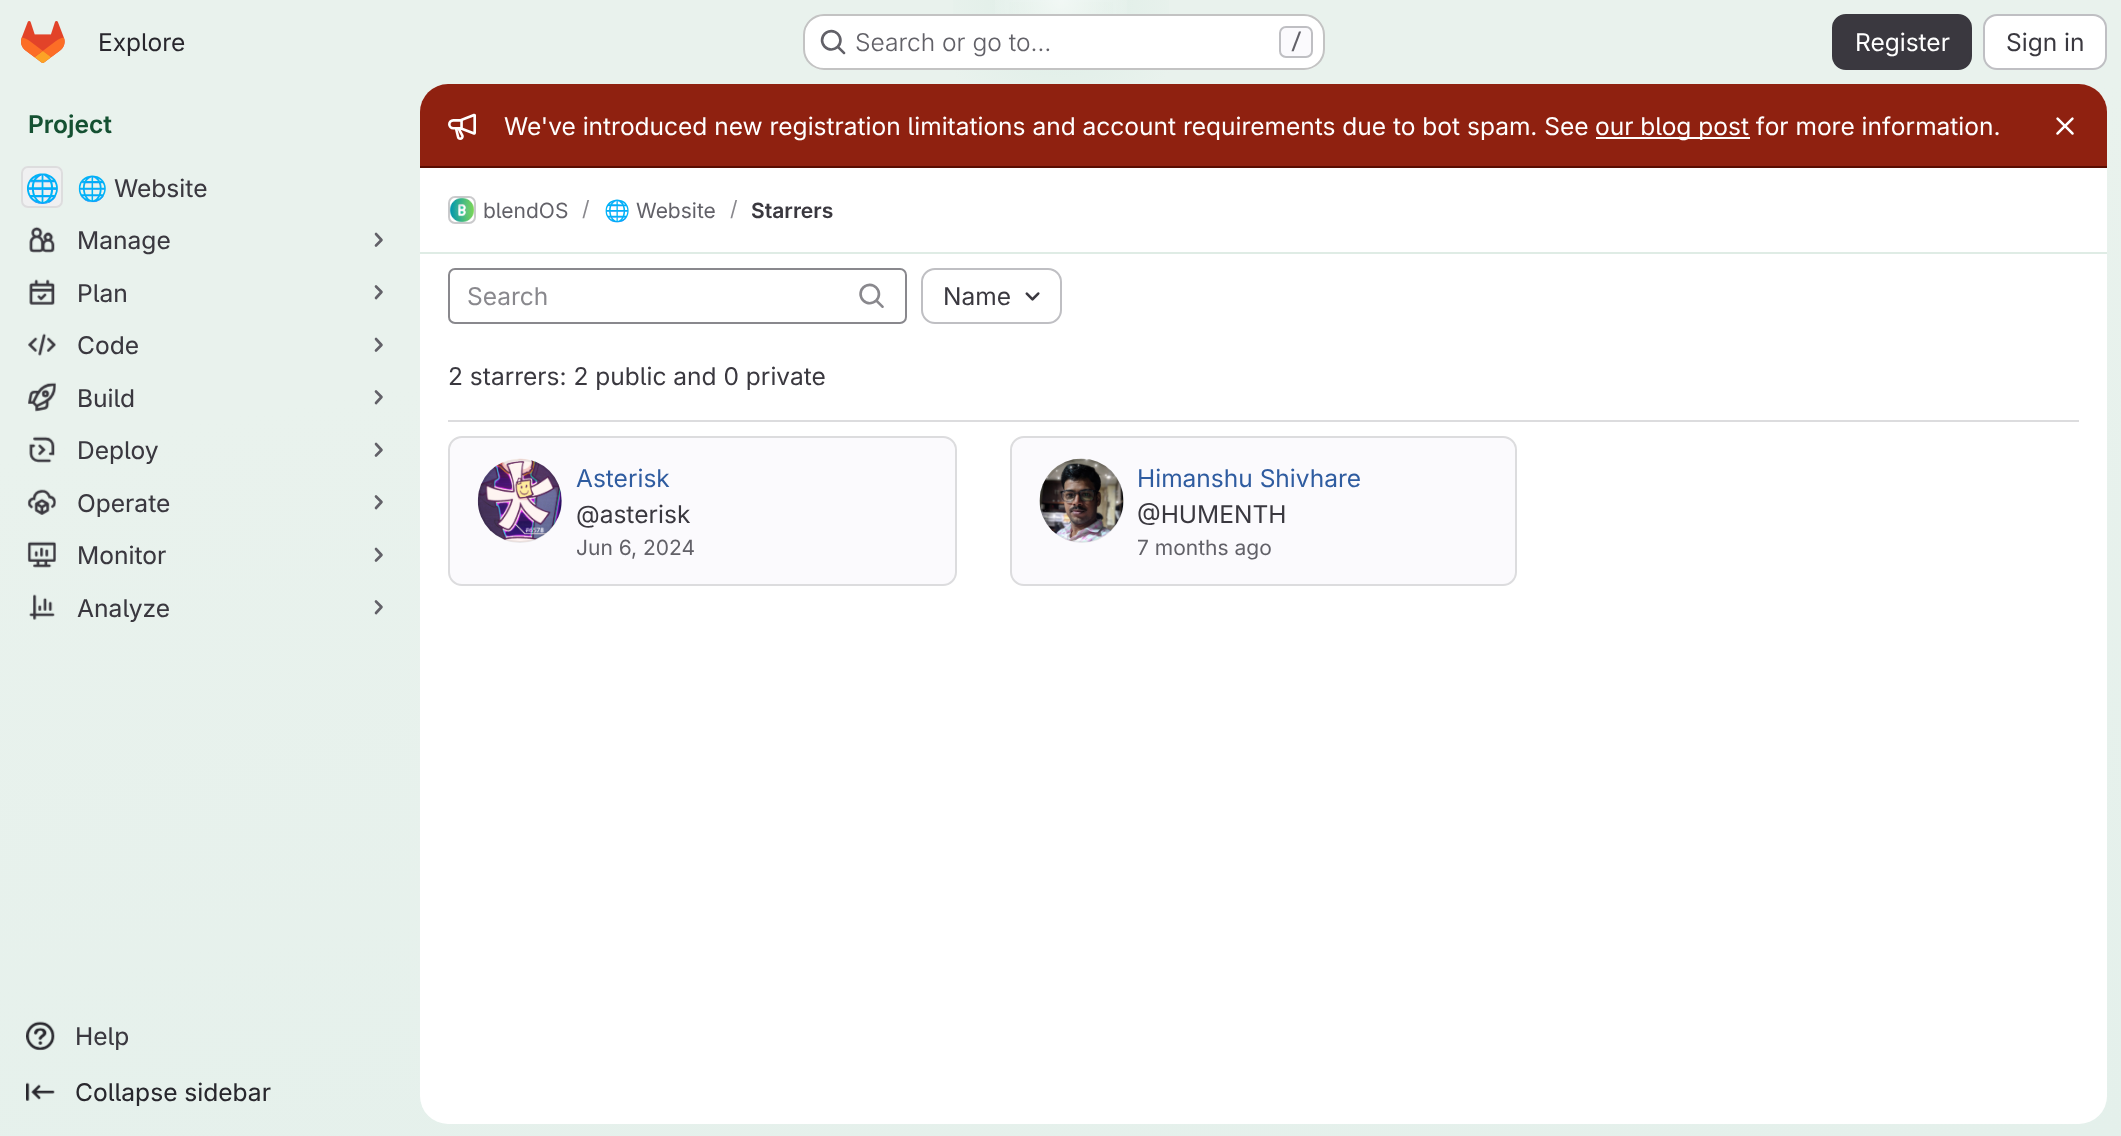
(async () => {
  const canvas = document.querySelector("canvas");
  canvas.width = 2121;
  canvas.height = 1136;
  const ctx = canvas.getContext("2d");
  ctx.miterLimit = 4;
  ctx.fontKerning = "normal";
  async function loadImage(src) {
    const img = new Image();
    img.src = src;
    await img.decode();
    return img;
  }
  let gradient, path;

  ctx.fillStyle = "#ffffff";
  ctx.fillRect(0, 0, 2121, 1136);
  gradient = ctx.createLinearGradient(1190, 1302, 931, -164);
  gradient.addColorStop(0, "#e4f0eb");
  gradient.addColorStop(0.7, "#e9f2ed");
  ctx.fillStyle = gradient;
  ctx.fillRect(0, 0, 2121, 1136);
  gradient = ctx.createRadialGradient(1061, 0, 0, 1061, 0, 1061);
  gradient.addColorStop(0, "#ddede6");
  gradient.addColorStop(0.12, "rgba(221, 237, 230, 0)");
  ctx.fillStyle = gradient;
  ctx.beginPath();
  ctx.rect(953, 0, 216, 84);
  ctx.save();
  ctx.clip();
  ctx.scale(1, 1138 / 1061);
  ctx.fillRect(0, 0, 2121, 1060);
  ctx.restore();
  gradient = ctx.createRadialGradient(1061, 0, 0, 1061, 0, 1061);
  gradient.addColorStop(0, "#deede5");
  gradient.addColorStop(0.08, "rgba(222, 237, 229, 0)");
  ctx.fillStyle = gradient;
  ctx.beginPath();
  ctx.rect(1009, 2, 104, 51);
  ctx.save();
  ctx.clip();
  ctx.scale(1, 1138 / 1061);
  ctx.fillRect(0, 0, 2121, 1060);
  ctx.restore();
  gradient = ctx.createRadialGradient(1061, 0, 0, 1061, 0, 1555);
  gradient.addColorStop(0, "rgba(255, 255, 255, 0.6)");
  gradient.addColorStop(0.05, "rgba(255, 255, 255, 0)");
  ctx.fillStyle = gradient;
  ctx.fillRect(995, 0, 132, 67);
  ctx.drawImage(await loadImage("img/1.png"), 21, 21, 44, 42);
  ctx.fillStyle = "#ffffff";
  ctx.beginPath();
  ctx.roundRect(803, 14, 522, 56, 21);
  ctx.fill();
  ctx.beginPath();
  ctx.roundRect(804, 15, 520, 54, 20);
  ctx.strokeStyle = "rgba(5, 5, 6, 0.24)";
  ctx.lineWidth = 2;
  ctx.stroke();
  ctx.drawImage(await loadImage("img/2.png"), 820, 29, 26, 26);
  ctx.fillStyle = "#fbfafd";
  ctx.beginPath();
  ctx.roundRect(1280, 27, 32, 30, 6);
  ctx.fill();
  ctx.strokeStyle = "#bfbfc3";
  ctx.stroke();
  ctx.fillStyle = "#3a383f";
  ctx.beginPath();
  ctx.roundRect(1833, 15, 138, 54, 13);
  ctx.fill();
  ctx.strokeStyle = "#3a383f";
  ctx.stroke();
  ctx.fillStyle = "#ffffff";
  ctx.beginPath();
  ctx.roundRect(1984, 15, 122, 54, 13);
  ctx.fill();
  ctx.strokeStyle = "#bfbfc3";
  ctx.stroke();
  ctx.beginPath();
  ctx.roundRect(21, 166, 42, 42, 7);
  ctx.fill();
  ctx.fillStyle = "rgba(191, 191, 195, 0.24)";
  ctx.beginPath();
  ctx.roundRect(21, 166, 42, 42, 7);
  ctx.fill();
  ctx.beginPath();
  ctx.roundRect(22, 167, 40, 40, 6);
  ctx.strokeStyle = "#ddddde";
  ctx.stroke();
  ctx.drawImage(await loadImage("img/3.png"), 29, 226, 26, 27);
  path = new Path2D("M376 234L381.5 240L376 245.5");
  ctx.strokeStyle = "#626168";
  ctx.lineWidth = 2.6;
  ctx.lineCap = "round";
  ctx.lineJoin = "round";
  ctx.stroke(path);
  ctx.drawImage(await loadImage("img/4.png"), 29, 279, 26, 26);
  path = new Path2D("M376 286.5L381.5 292L376 298");
  ctx.stroke(path);
  ctx.drawImage(await loadImage("img/5.png"), 28, 333, 28, 23);
  path = new Path2D("M376 339L381.5 345L376 350.5");
  ctx.stroke(path);
  ctx.drawImage(await loadImage("img/6.png"), 28, 382, 28, 30);
  path = new Path2D("M376 391.5L381.5 397L376 403");
  ctx.stroke(path);
  ctx.drawImage(await loadImage("img/7.png"), 29, 436, 26, 27);
  path = new Path2D("M376 444L381.5 450L376 455.5");
  ctx.stroke(path);
  ctx.drawImage(await loadImage("img/8.png"), 27, 489, 29, 26);
  path = new Path2D("M376 496.5L381.5 502L376 508");
  ctx.stroke(path);
  ctx.drawImage(await loadImage("img/9.png"), 27, 541, 29, 27);
  path = new Path2D("M376 549L381.5 555L376 560.5");
  ctx.stroke(path);
  ctx.drawImage(await loadImage("img/10.png"), 29, 594, 26, 26);
  path = new Path2D("M376 601.5L381.5 607L376 613");
  ctx.stroke(path);
  ctx.drawImage(await loadImage("img/11.png"), 26, 1021, 29, 30);
  ctx.drawImage(await loadImage("img/12.png"), 26, 1082, 29, 19);
  ctx.fillStyle = "#ffffff";
  ctx.beginPath();
  ctx.roundRect(420, 84, 1687, 1040, 28);
  ctx.fill();
  ctx.fillStyle = "#8f2110";
  ctx.beginPath();
  ctx.roundRect(420, 84, 1687, 84, [28, 28, 0, 0]);
  ctx.fill();
  ctx.fillStyle = "#580d02";
  ctx.fillRect(420, 166, 1687, 2);
  ctx.drawImage(await loadImage("img/13.png"), 448, 113, 28, 27);
  ctx.fillStyle = "#ffffff";
  ctx.fillRect(1596, 137, 154, 2);
  ctx.drawImage(await loadImage("img/14.png"), 2056, 117, 18, 18);
  ctx.fillStyle = "#dfece5";
  ctx.fillRect(420, 252, 1687, 2);
  ctx.beginPath();
  ctx.roundRect(449, 197, 26, 26, 6);
  ctx.strokeStyle = "#dcdcde";
  ctx.lineWidth = 2;
  ctx.lineJoin = "miter";
  ctx.stroke();
  ctx.drawImage(await loadImage("img/15.png"), 449, 197, 26, 26);
  ctx.beginPath();
  ctx.roundRect(449, 197, 26, 26, 6);
  ctx.strokeStyle = "rgba(5, 5, 6, 0.08)";
  ctx.stroke();
  ctx.fillStyle = "#dcdcde";
  ctx.fillRect(448, 420, 1631, 2);
  ctx.beginPath();
  ctx.roundRect(449, 269, 457, 54, 6);
  ctx.strokeStyle = "#89888d";
  ctx.stroke();
  ctx.drawImage(await loadImage("img/16.png"), 859, 283, 25, 25);
  ctx.beginPath();
  ctx.roundRect(922, 269, 139, 54, 13);
  ctx.strokeStyle = "#bfbfc3";
  ctx.stroke();
  ctx.drawImage(await loadImage("img/17.png"), 1025, 292, 15, 9);
  ctx.fillStyle = "#fbfafd";
  ctx.beginPath();
  ctx.roundRect(449, 437, 507, 148, 13);
  ctx.fill();
  ctx.strokeStyle = "#dcdcde";
  ctx.stroke();
  ctx.drawImage(await loadImage("img/18.png"), 477, 458, 85, 84);
  ctx.beginPath();
  ctx.arc(520, 501, 41, 0, Math.PI * 2);
  ctx.strokeStyle = "rgba(5, 5, 6, 0.08)";
  ctx.stroke();
  ctx.beginPath();
  ctx.roundRect(1011, 437, 505, 148, 13);
  ctx.fill();
  ctx.strokeStyle = "#dcdcde";
  ctx.stroke();
  ctx.drawImage(await loadImage("img/19.png"), 1039, 458, 85, 85);
  ctx.beginPath();
  ctx.arc(1082, 501, 41, 0, Math.PI * 2);
  ctx.strokeStyle = "rgba(5, 5, 6, 0.08)";
  ctx.stroke();
  ctx.font = "24.5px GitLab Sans";
  ctx.fillStyle = "#28272d";
  ctx.fillText("Explore", 98, 51);
  ctx.font = "300 24.5px GitLab Sans";
  ctx.fillStyle = "#626168";
  ctx.fillText("Search or go to…", 855, 51);
  ctx.font = "500 21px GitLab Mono";
  ctx.fillText("/", 1290, 49);
  ctx.font = "24.5px GitLab Sans";
  ctx.fillStyle = "#ffffff";
  ctx.fillText("Register", 1855, 51);
  ctx.fillStyle = "#3a383f";
  ctx.fillText("Sign in", 2006, 51);
  ctx.font = "600 24.5px GitLab Sans";
  ctx.fillStyle = "#155132";
  ctx.fillText("Project", 28, 133);
  ctx.font = "28px 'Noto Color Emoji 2'";
  ctx.fillStyle = "#3a383f";
  ctx.fillText("🌐", 25, 198);
  ctx.font = "24.5px Noto Color Emoji";
  ctx.fillText("🌐", 77, 197);
  ctx.font = "24.5px 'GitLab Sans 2'";
  for (const [text, x, y] of [
    ["Website", 114, 197],
    ["Manage", 77, 249],
    ["Plan", 77, 302],
    ["Code", 77, 354],
    ["Build", 77, 407],
    ["Deploy", 77, 459],
    ["Operate", 77, 512],
    ["Monitor", 77, 564],
    ["Analyze", 77, 617],
    ["Help", 75, 1045],
  ]) {
    ctx.fillText(text, x, y);
  }
  ctx.fillStyle = "#28272d";
  ctx.fillText("Collapse sidebar", 75, 1101);
  ctx.font = "24.5px GitLab Sans";
  ctx.fillStyle = "#ffffff";
  ctx.fillText("We've introduced new registration limitations and account requirements due to bot spam. See", 504, 135);
  ctx.fillText("our blog post for more information.", 1595, 135);
  ctx.font = "21px GitLab Sans";
  ctx.fillStyle = "#626168";
  ctx.fillText("blendOS", 483, 218);
  ctx.fillStyle = "#89888d";
  ctx.fillText("/", 582, 216);
  ctx.font = "21px Noto Color Emoji";
  ctx.fillStyle = "#626168";
  ctx.fillText("🌐", 604, 218);
  ctx.font = "21px GitLab Sans";
  ctx.fillText("Website", 636, 218);
  ctx.fillStyle = "#89888d";
  ctx.fillText("/", 730, 216);
  ctx.font = "600 21px GitLab Sans";
  ctx.fillStyle = "#3a383f";
  ctx.fillText("Starrers", 751, 218);
  ctx.font = "24.5px GitLab Sans";
  ctx.fillStyle = "#89888d";
  ctx.fillText("Search", 467, 305);
  ctx.fillStyle = "#3a383f";
  ctx.fillText("Name", 943, 305);
  ctx.fillText("2 starrers: 2 public and 0 private", 448, 385);
  ctx.fillStyle = "#2f5ca0";
  ctx.fillText("Asterisk", 576, 487);
  ctx.fillStyle = "#3a383f";
  ctx.fillText("@asterisk", 576, 523);
  ctx.font = "21px GitLab Sans";
  ctx.fillStyle = "#626168";
  ctx.fillText("Jun 6, 2024", 576, 555);
  ctx.font = "24.5px GitLab Sans";
  ctx.fillStyle = "#2f5ca0";
  ctx.fillText("Himanshu Shivhare", 1137, 487);
  ctx.fillStyle = "#3a383f";
  ctx.fillText("@HUMENTH", 1137, 523);
  ctx.font = "21px GitLab Sans";
  ctx.fillStyle = "#626168";
  ctx.fillText("7 months ago", 1137, 555);
})();
